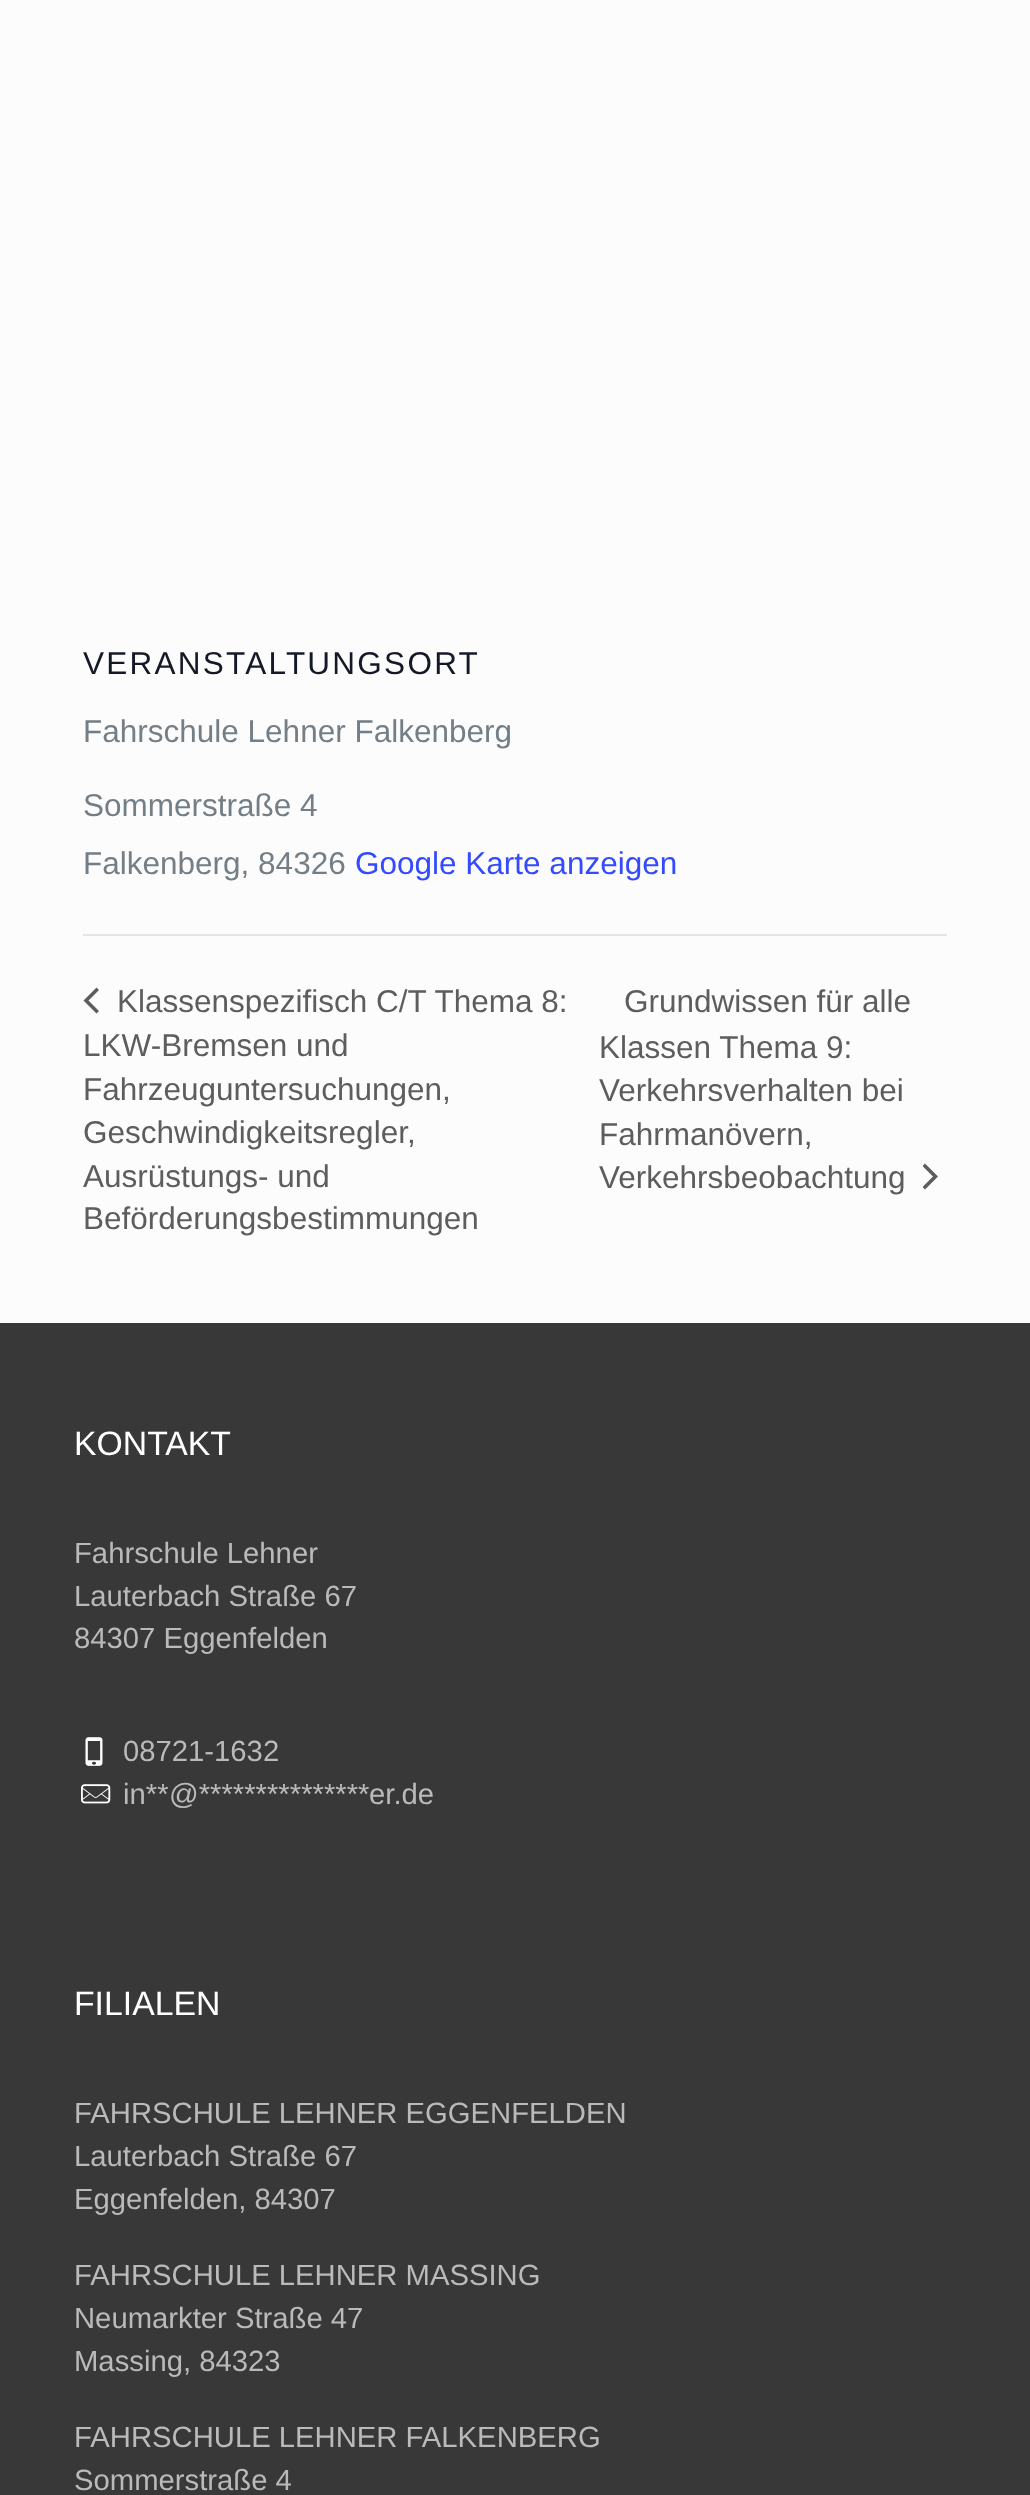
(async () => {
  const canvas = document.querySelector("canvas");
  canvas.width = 1030;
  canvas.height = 2495;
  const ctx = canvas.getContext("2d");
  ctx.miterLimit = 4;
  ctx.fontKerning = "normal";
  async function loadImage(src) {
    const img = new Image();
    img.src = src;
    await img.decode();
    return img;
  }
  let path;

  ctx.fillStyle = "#fcfcfc";
  ctx.fillRect(0, 0, 1030, 2495);
  ctx.fillStyle = "#e4e4e4";
  ctx.fillRect(83, 934, 864, 2);
  ctx.fillStyle = "#5d5d5d";
  path = new Path2D("M99 1011L96.5 1013.5L83.5 1000.5L96.5 987.5L99 990L88.5 1000.5Z");
  ctx.fill(path);
  ctx.save();
  ctx.beginPath();
  ctx.rect(923, 1163, 15, 27);
  ctx.clip();
  path = new Path2D("M922.5 1166L925 1163.5L938 1176.5L925 1189.5L922.5 1187L933 1176.5Z");
  ctx.fill(path);
  ctx.restore();
  ctx.fillStyle = "#383838";
  ctx.fillRect(0, 1323, 1030, 1172);
  ctx.drawImage(await loadImage("img/1.png"), 85, 1737, 18, 29);
  ctx.drawImage(await loadImage("img/2.png"), 81, 1784, 30, 20);
  ctx.letterSpacing = "2.25px";
  ctx.font = "31.5px Liberation Sans";
  ctx.fillStyle = "#141827";
  ctx.fillText("VERANSTALTUNGSORT", 83, 674);
  ctx.letterSpacing = "0px";
  ctx.fillStyle = "#737e86";
  for (const [text, x, y] of [
    ["Fahrschule Lehner Falkenberg", 83, 742],
    ["Sommerstraße 4", 83, 816],
    ["Falkenberg, 84326", 83, 874],
  ]) {
    ctx.fillText(text, x, y);
  }
  ctx.fillStyle = "#334aff";
  ctx.fillText("Google Karte anzeigen", 355, 874);
  ctx.fillStyle = "#5d5d5d";
  for (const [text, x, y] of [
    ["Klassenspezifisch C/T Thema 8:", 117, 1012],
    ["LKW-Bremsen und", 83, 1056],
    ["Fahrzeuguntersuchungen,", 83, 1100],
    ["Geschwindigkeitsregler,", 83, 1143],
    ["Ausrüstungs- und", 83, 1187],
    ["Beförderungsbestimmungen", 83, 1229],
    ["Grundwissen für alle", 624, 1012],
    ["Klassen Thema 9:", 599, 1058],
    ["Verkehrsverhalten bei", 599, 1101],
    ["Fahrmanövern,", 599, 1145],
    ["Verkehrsbeobachtung", 599, 1188],
  ]) {
    ctx.fillText(text, x, y);
  }
  ctx.font = "33.75px Liberation Sans";
  ctx.fillStyle = "#ffffff";
  ctx.fillText("KONTAKT", 74, 1455);
  ctx.font = "29.25px Liberation Sans";
  ctx.fillStyle = "#bababa";
  for (const [text, x, y] of [
    ["Fahrschule Lehner", 74, 1563],
    ["Lauterbach Straße 67", 74, 1606],
    ["84307 Eggenfelden", 74, 1648],
    ["08721-1632", 123, 1761],
    ["in**", 123, 1804],
    ["@***************", 169, 1804],
    ["er.de", 369, 1804],
  ]) {
    ctx.fillText(text, x, y);
  }
  ctx.font = "33.75px Liberation Sans";
  ctx.fillStyle = "#ffffff";
  ctx.fillText("FILIALEN", 74, 2015);
  ctx.font = "29.25px Liberation Sans";
  ctx.fillStyle = "#bababa";
  for (const [text, x, y] of [
    ["FAHRSCHULE LEHNER EGGENFELDEN", 74, 2123],
    ["Lauterbach Straße 67", 74, 2166],
    ["Eggenfelden, 84307", 74, 2209],
    ["FAHRSCHULE LEHNER MASSING", 74, 2285],
    ["Neumarkter Straße 47", 74, 2328],
    ["Massing, 84323", 74, 2371],
    ["FAHRSCHULE LEHNER FALKENBERG", 74, 2447],
    ["Sommerstraße 4", 74, 2490],
  ]) {
    ctx.fillText(text, x, y);
  }
})();
